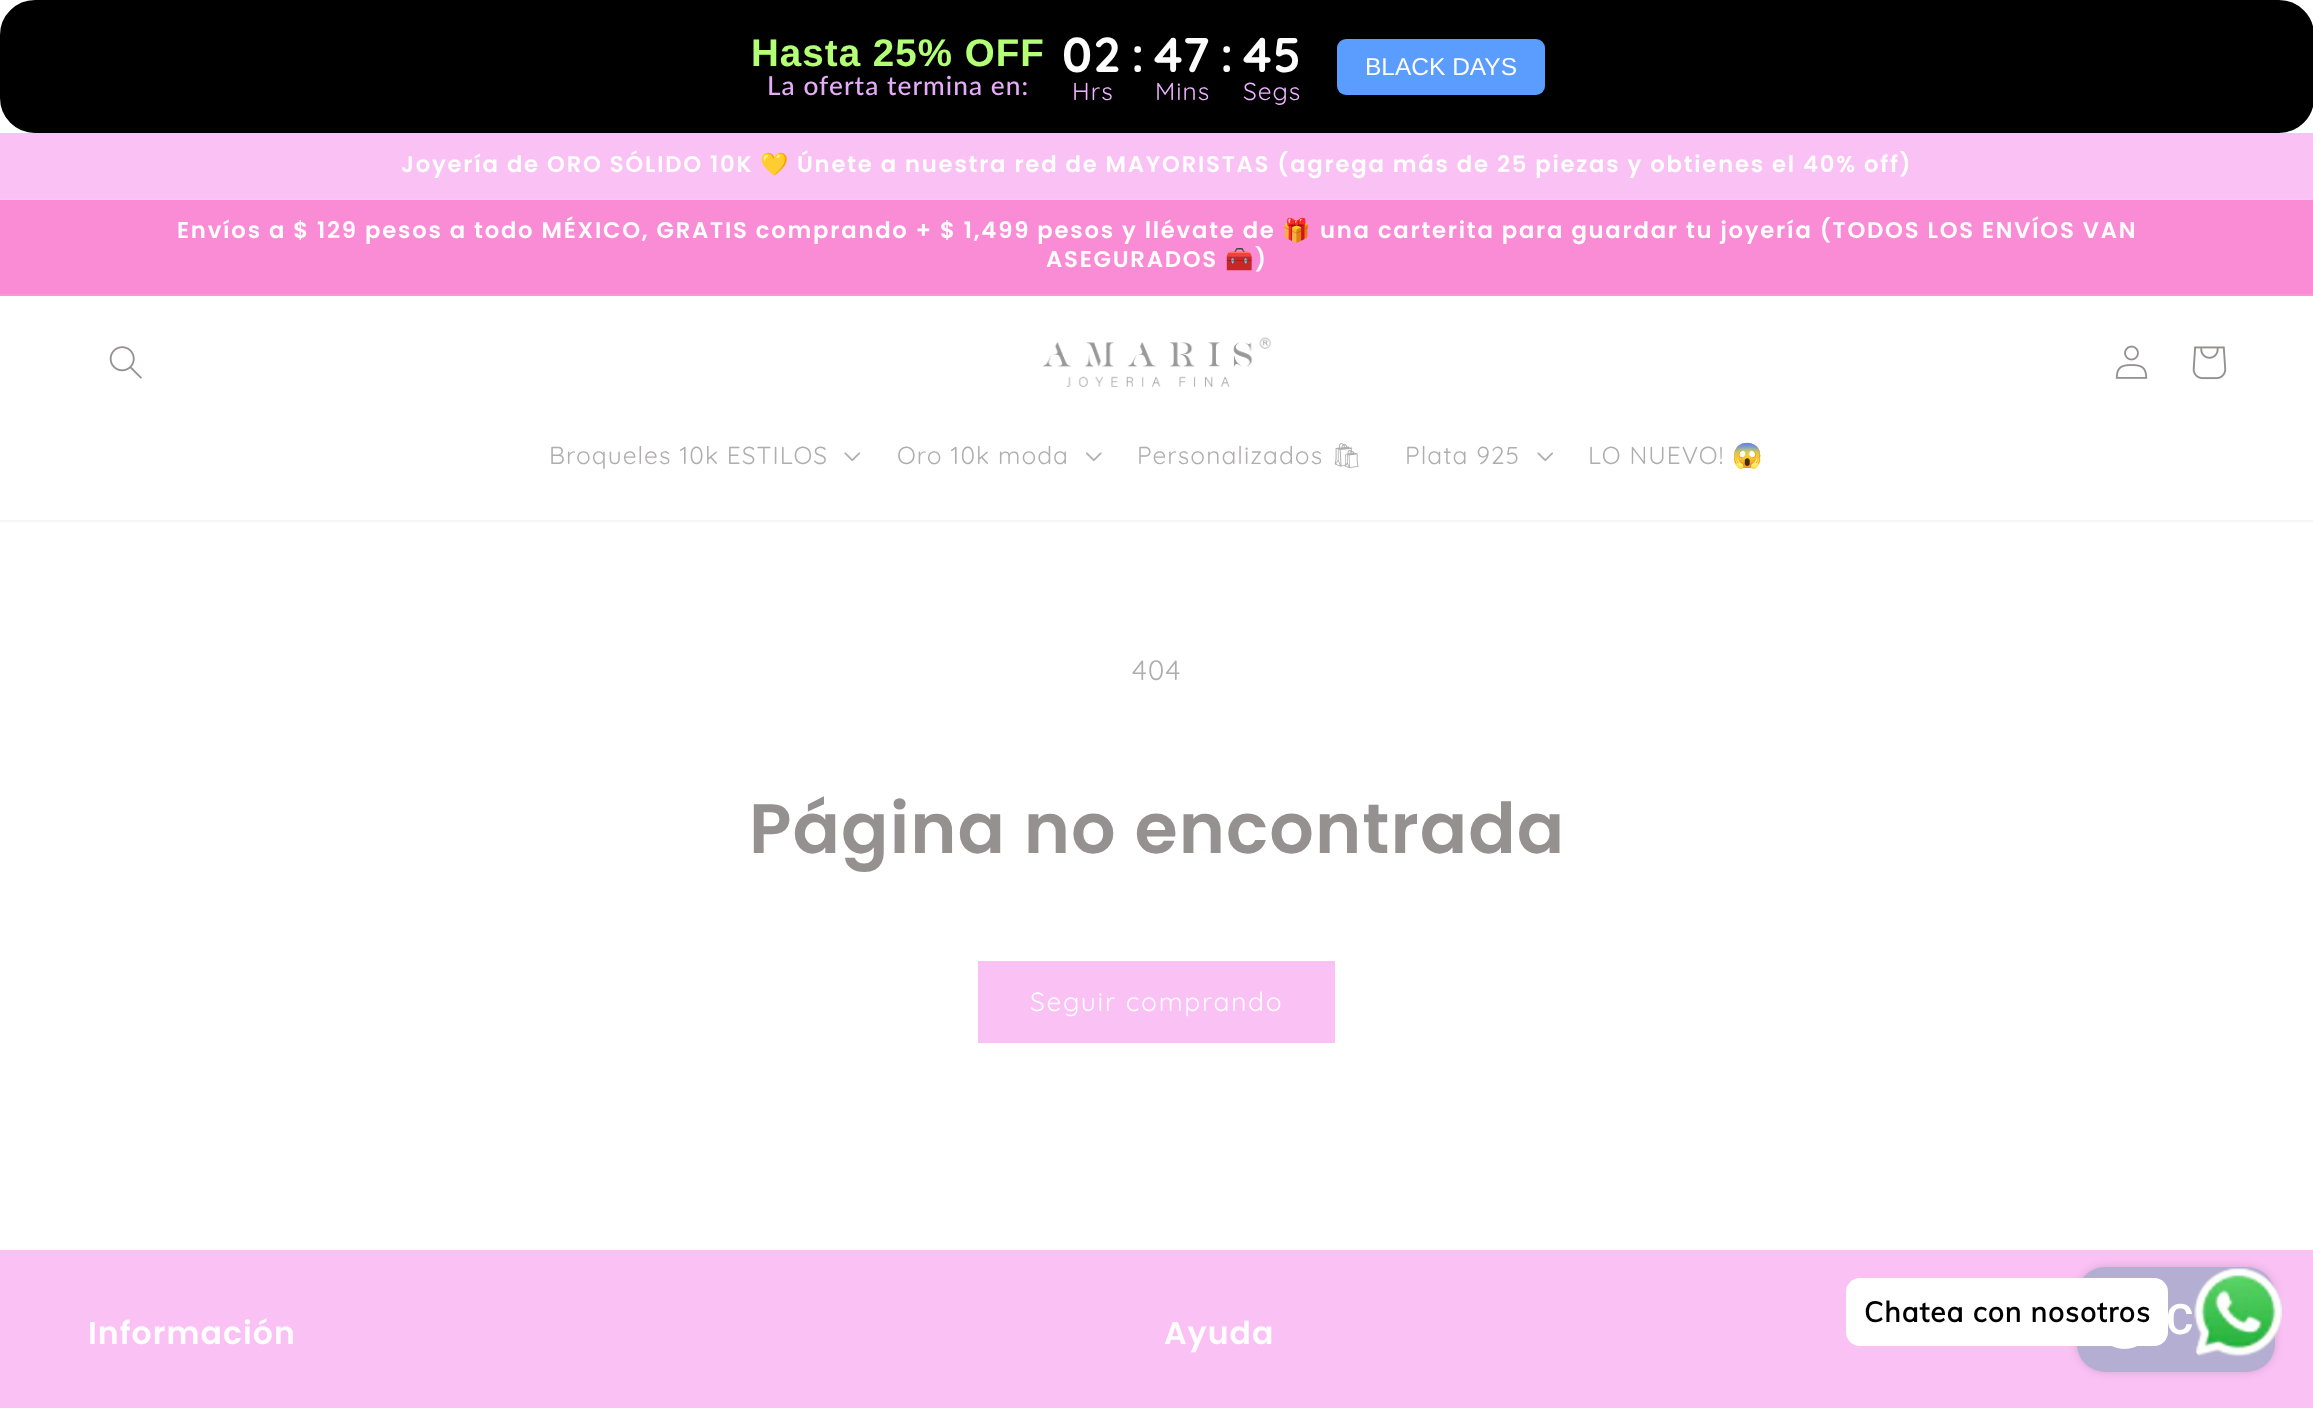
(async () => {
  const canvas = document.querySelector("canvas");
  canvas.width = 2313;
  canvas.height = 1408;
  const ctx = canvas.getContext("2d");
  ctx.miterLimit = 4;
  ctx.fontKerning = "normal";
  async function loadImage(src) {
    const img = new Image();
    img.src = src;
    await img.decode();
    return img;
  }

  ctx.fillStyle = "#ffffff";
  ctx.fillRect(0, 0, 2313, 1408);
  ctx.fillStyle = "#000000";
  ctx.beginPath();
  ctx.roundRect(2, 2, 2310, 129, 33);
  ctx.fill();
  ctx.strokeStyle = "#000000";
  ctx.lineWidth = 4;
  ctx.stroke();
  ctx.fillStyle = "#5b9dff";
  ctx.beginPath();
  ctx.roundRect(1337, 39, 208, 56, 9);
  ctx.fill();
  for (const [x, y, w, h, color] of [
    [0, 133, 2313, 65, "#fac2f4"],
    [0, 198, 2313, 2, "#fac7f5"],
    [0, 200, 2313, 94, "#f98cd5"],
    [0, 294, 2313, 2, "#f995d8"],
    [0, 520, 2313, 2, "#f7f6f6"],
  ]) {
    ctx.fillStyle = color;
    ctx.fillRect(x, y, w, h);
  }
  ctx.drawImage(await loadImage("img/1.png"), 109, 346, 33, 33);
  ctx.drawImage(await loadImage("img/2.png"), 1043, 337, 228, 50);
  ctx.drawImage(await loadImage("img/3.png"), 2115, 345, 33, 34);
  ctx.drawImage(await loadImage("img/4.png"), 2192, 346, 35, 34);
  ctx.drawImage(await loadImage("img/5.png"), 844, 452, 16, 9);
  ctx.drawImage(await loadImage("img/6.png"), 1086, 452, 16, 9);
  ctx.drawImage(await loadImage("img/5.png"), 1537, 452, 16, 9);
  ctx.fillStyle = "#fac2f4";
  ctx.fillRect(978, 961, 357, 82);
  ctx.fillRect(0, 1250, 2313, 158);
  ctx.fillStyle = "rgba(0, 0, 0, 0.15)";
  ctx.filter = "blur(4.5px)";
  ctx.beginPath();
  ctx.roundRect(2077, 1267, 198, 105, 28);
  ctx.fill();
  ctx.filter = "none";
  ctx.fillStyle = "#b4aed2";
  ctx.beginPath();
  ctx.roundRect(2077, 1267, 198, 105, 28);
  ctx.fill();
  ctx.drawImage(await loadImage("img/7.png"), 2194, 1268, 88, 89);
  ctx.fillStyle = "#ffffff";
  ctx.beginPath();
  ctx.roundRect(1846, 1278, 322, 68, 14);
  ctx.fill();
  ctx.drawImage(await loadImage("img/8.png"), 2112, 1346, 25, 3);
  ctx.letterSpacing = "1.05px";
  ctx.font = "bold 38.5px Liberation Sans";
  ctx.fillStyle = "#b3ff76";
  ctx.fillText("Hasta 25% OFF", 751, 66);
  ctx.font = "500 26.25px Lato";
  ctx.fillStyle = "#e4acf7";
  ctx.fillText("La oferta termina en:", 767, 95);
  ctx.font = "bold 49px Quicksand";
  ctx.fillStyle = "#fdfdfd";
  ctx.fillText("02", 1062, 72);
  ctx.font = "24.5px Quicksand";
  ctx.fillStyle = "#edb5ff";
  ctx.fillText("Hrs", 1072, 100);
  ctx.font = "bold 49px Quicksand";
  ctx.fillStyle = "#fdfdfd";
  ctx.fillText(":", 1131, 72);
  ctx.fillText("47", 1154, 72);
  ctx.font = "24.5px Quicksand";
  ctx.fillStyle = "#edb5ff";
  ctx.fillText("Mins", 1155, 100);
  ctx.font = "bold 49px Quicksand";
  ctx.fillStyle = "#fdfdfd";
  ctx.fillText(":", 1220, 72);
  ctx.fillText("45", 1243, 72);
  ctx.font = "24.5px Quicksand";
  ctx.fillStyle = "#edb5ff";
  ctx.fillText("Segs", 1243, 100);
  ctx.letterSpacing = "0px";
  ctx.font = "24.5px Liberation Sans";
  ctx.fillStyle = "#fdfdfd";
  ctx.fillText("BLACK DAYS", 1365, 75);
  ctx.letterSpacing = "1.75px";
  ctx.font = "600 22.75px Poppins";
  ctx.fillText("Joyería de ORO SÓLIDO 10K", 401, 172);
  ctx.font = "bold 22.75px Noto Color Emoji";
  ctx.fillText("💛", 760, 172);
  ctx.font = "600 22.75px Poppins";
  ctx.fillText("Únete a nuestra red de MAYORISTAS (agrega más de 25 piezas y obtienes el 40% off)", 797, 172);
  ctx.fillText("Envíos a $ 129 pesos a todo MÉXICO, GRATIS comprando + $ 1,499 pesos y llévate de", 177, 238);
  ctx.font = "bold 22.75px Noto Color Emoji";
  ctx.fillText("🎁", 1282, 238);
  ctx.font = "600 22.75px Poppins";
  ctx.fillText("una carterita para guardar tu joyería (TODOS LOS ENVÍOS VAN", 1320, 238);
  ctx.fillText("ASEGURADOS", 1046, 267);
  ctx.font = "bold 22.75px Noto Color Emoji";
  ctx.fillText("🧰", 1225, 267);
  ctx.font = "600 22.75px Poppins";
  ctx.fillText(")", 1255, 267);
  ctx.letterSpacing = "1.05px";
  ctx.font = "24.5px Quicksand";
  ctx.fillStyle = "#b0adad";
  for (const [text, x, y] of [
    ["Broqueles 10k ESTILOS", 549, 464],
    ["Oro 10k moda", 897, 464],
    ["Personalizados", 1137, 464],
  ]) {
    ctx.fillText(text, x, y);
  }
  ctx.font = "24.5px Noto Emoji";
  ctx.fillText("🛍", 1331, 464);
  ctx.font = "24.5px Quicksand";
  ctx.fillText("Plata 925", 1405, 464);
  ctx.fillText("LO NUEVO!", 1588, 464);
  ctx.font = "24.5px Noto Color Emoji";
  ctx.fillText("😱", 1732, 464);
  ctx.font = "28px Quicksand";
  ctx.fillText("404", 1132, 680);
  ctx.font = "600 70px Poppins";
  ctx.fillStyle = "#969191";
  ctx.fillText("Página no encontrada", 749, 853);
  ctx.letterSpacing = "1.75px";
  ctx.font = "26.25px Quicksand";
  ctx.fillStyle = "#fdfdfd";
  ctx.fillText("Seguir comprando", 1030, 1011);
  ctx.letterSpacing = "1.05px";
  ctx.font = "600 31.5px Poppins";
  ctx.fillText("Información", 88, 1344);
  ctx.fillText("Ayuda", 1164, 1344);
  ctx.font = "bold 28px Muli";
  ctx.fillStyle = "#000000";
  ctx.fillText("Chatea con nosotros", 1864, 1322);
  ctx.letterSpacing = "0px";
  ctx.font = "600 42px Roboto";
  ctx.fillStyle = "#fdfdfd";
  ctx.fillText("C", 2166, 1334);
})();
